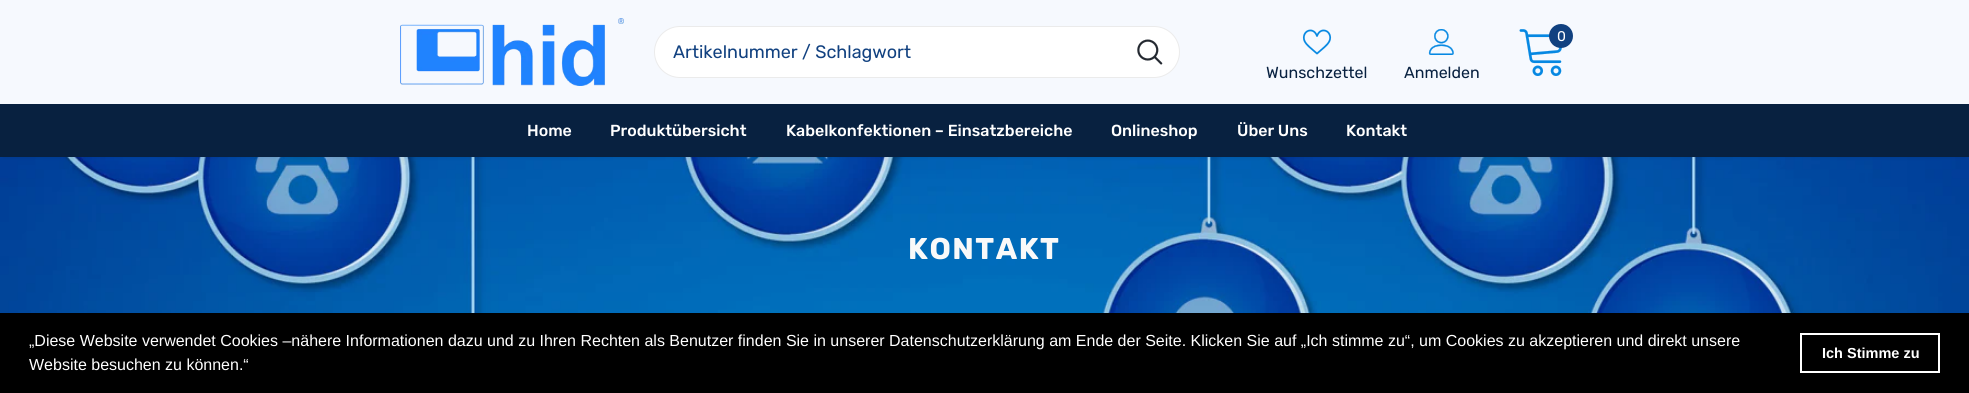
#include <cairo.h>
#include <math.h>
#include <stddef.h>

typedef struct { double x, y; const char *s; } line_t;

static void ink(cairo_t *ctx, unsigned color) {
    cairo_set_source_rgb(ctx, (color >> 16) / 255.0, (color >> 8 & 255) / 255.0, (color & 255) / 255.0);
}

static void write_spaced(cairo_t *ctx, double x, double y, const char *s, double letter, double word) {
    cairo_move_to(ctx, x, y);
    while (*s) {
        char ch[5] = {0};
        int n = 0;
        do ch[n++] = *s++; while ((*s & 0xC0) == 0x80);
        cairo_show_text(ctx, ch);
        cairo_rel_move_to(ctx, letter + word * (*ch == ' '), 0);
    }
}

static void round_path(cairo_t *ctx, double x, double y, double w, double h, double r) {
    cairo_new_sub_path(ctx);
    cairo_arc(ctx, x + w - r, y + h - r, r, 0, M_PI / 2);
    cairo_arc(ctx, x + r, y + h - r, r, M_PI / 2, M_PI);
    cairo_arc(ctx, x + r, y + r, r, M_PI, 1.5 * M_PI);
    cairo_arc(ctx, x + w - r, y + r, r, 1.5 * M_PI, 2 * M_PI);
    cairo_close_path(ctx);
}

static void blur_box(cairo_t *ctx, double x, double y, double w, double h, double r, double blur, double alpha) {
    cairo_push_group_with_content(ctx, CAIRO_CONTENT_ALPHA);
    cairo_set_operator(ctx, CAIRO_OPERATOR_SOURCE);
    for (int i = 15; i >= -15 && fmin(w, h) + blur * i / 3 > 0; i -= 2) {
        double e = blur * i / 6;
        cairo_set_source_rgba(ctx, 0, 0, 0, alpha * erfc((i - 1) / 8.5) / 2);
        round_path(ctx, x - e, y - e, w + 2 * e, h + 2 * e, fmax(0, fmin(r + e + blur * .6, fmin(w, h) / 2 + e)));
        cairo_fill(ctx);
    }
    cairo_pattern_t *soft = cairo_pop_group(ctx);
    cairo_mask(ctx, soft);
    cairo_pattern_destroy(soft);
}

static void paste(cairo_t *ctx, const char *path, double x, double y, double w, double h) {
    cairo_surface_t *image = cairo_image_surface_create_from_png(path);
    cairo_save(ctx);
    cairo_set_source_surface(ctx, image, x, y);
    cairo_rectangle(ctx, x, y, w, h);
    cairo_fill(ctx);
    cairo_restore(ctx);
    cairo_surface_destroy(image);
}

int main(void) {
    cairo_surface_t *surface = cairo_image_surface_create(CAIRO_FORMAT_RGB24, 1969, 393);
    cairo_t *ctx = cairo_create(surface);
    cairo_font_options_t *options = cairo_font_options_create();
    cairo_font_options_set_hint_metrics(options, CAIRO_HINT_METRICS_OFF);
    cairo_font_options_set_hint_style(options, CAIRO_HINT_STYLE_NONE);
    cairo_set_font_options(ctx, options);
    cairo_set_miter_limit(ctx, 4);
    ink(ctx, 0xF6F9FE);
    cairo_paint(ctx);
    paste(ctx, "media/1.png", 400, 18, 224, 68);
    ink(ctx, 0xFFFFFF);
    round_path(ctx, 654.5, 26.5, 525, 51, 25.5);
    cairo_fill_preserve(ctx);
    ink(ctx, 0xEBEBEB);
    cairo_set_line_width(ctx, 1);
    cairo_stroke(ctx);
    cairo_select_font_face(ctx, "Rubik", CAIRO_FONT_SLANT_NORMAL, CAIRO_FONT_WEIGHT_NORMAL);
    cairo_set_font_size(ctx, 18);
    ink(ctx, 0x114180);
    cairo_move_to(ctx, 673, 58);
    cairo_show_text(ctx, "Artikelnummer / Schlagwort");
    paste(ctx, "media/2.png", 1137, 39, 26, 26);
    paste(ctx, "media/3.png", 1519, 29, 43, 47);
    cairo_arc(ctx, 1561, 36, 12, 0, 2 * M_PI);
    cairo_fill(ctx);
    cairo_set_font_size(ctx, 14);
    ink(ctx, 0xFFFFFF);
    cairo_move_to(ctx, 1557, 41);
    cairo_show_text(ctx, "0");
    paste(ctx, "media/4.png", 1302, 29, 30, 26);
    cairo_set_font_size(ctx, 16);
    ink(ctx, 0x082140);
    cairo_move_to(ctx, 1266, 78);
    cairo_show_text(ctx, "Wunschzettel");
    paste(ctx, "media/5.png", 1428, 29, 26, 26);
    cairo_move_to(ctx, 1404, 78);
    cairo_show_text(ctx, "Anmelden");
    paste(ctx, "media/6.png", 0, 157, 1969, 156);
    ink(ctx, 0x000000);
    blur_box(ctx, 3, 110, 1963, 47, 0, 1.5, 0.1);
    ink(ctx, 0x082140);
    cairo_rectangle(ctx, 0, 104, 1969, 53);
    cairo_fill(ctx);
    cairo_select_font_face(ctx, "Rubik Medium", CAIRO_FONT_SLANT_NORMAL, CAIRO_FONT_WEIGHT_NORMAL);
    ink(ctx, 0xFFFFFF);
    {
        static const line_t items[] = {
            {527, 136, "Home"},
            {610, 136, "Produktübersicht"},
            {786, 136, "Kabelkonfektionen – Einsatzbereiche"},
            {1111, 136, "Onlineshop"},
            {1237, 136, "Über Uns"},
            {1346, 136, "Kontakt"},
        };
        for (size_t i = 0; i < sizeof items / sizeof *items; i++) {
            cairo_move_to(ctx, items[i].x, items[i].y);
            cairo_show_text(ctx, items[i].s);
        }
    }
    cairo_select_font_face(ctx, "Rubik", CAIRO_FONT_SLANT_NORMAL, CAIRO_FONT_WEIGHT_BOLD);
    cairo_set_font_size(ctx, 30);
    ink(ctx, 0xF9F9F9);
    write_spaced(ctx, 908, 259, "KONTAKT", 1.5, 0);
    ink(ctx, 0x000000);
    cairo_rectangle(ctx, 0, 313, 1969, 80);
    cairo_fill(ctx);
    cairo_select_font_face(ctx, "Liberation Sans", CAIRO_FONT_SLANT_NORMAL, CAIRO_FONT_WEIGHT_NORMAL);
    cairo_set_font_size(ctx, 16);
    ink(ctx, 0xFFFFFF);
    cairo_move_to(ctx, 29, 346);
    cairo_show_text(ctx, "„Diese Website verwendet Cookies –nähere Informationen dazu und zu Ihren Rechten als Benutzer finden Sie in unserer Datenschutzerklärung am Ende der Seite. Klicken Sie auf „Ich stimme zu“, um Cookies zu akzeptieren und direkt unsere");
    cairo_move_to(ctx, 29, 370);
    cairo_show_text(ctx, "Website besuchen zu können.“");
    cairo_rectangle(ctx, 1801, 334, 138, 38);
    cairo_set_line_width(ctx, 2);
    cairo_stroke(ctx);
    cairo_select_font_face(ctx, "Liberation Sans", CAIRO_FONT_SLANT_NORMAL, CAIRO_FONT_WEIGHT_BOLD);
    cairo_set_font_size(ctx, 14.5);
    cairo_move_to(ctx, 1822, 358);
    cairo_show_text(ctx, "Ich Stimme zu");
    cairo_surface_write_to_png(surface, "image.png");
    cairo_font_options_destroy(options);
    cairo_destroy(ctx);
    cairo_surface_destroy(surface);
    return 0;
}
